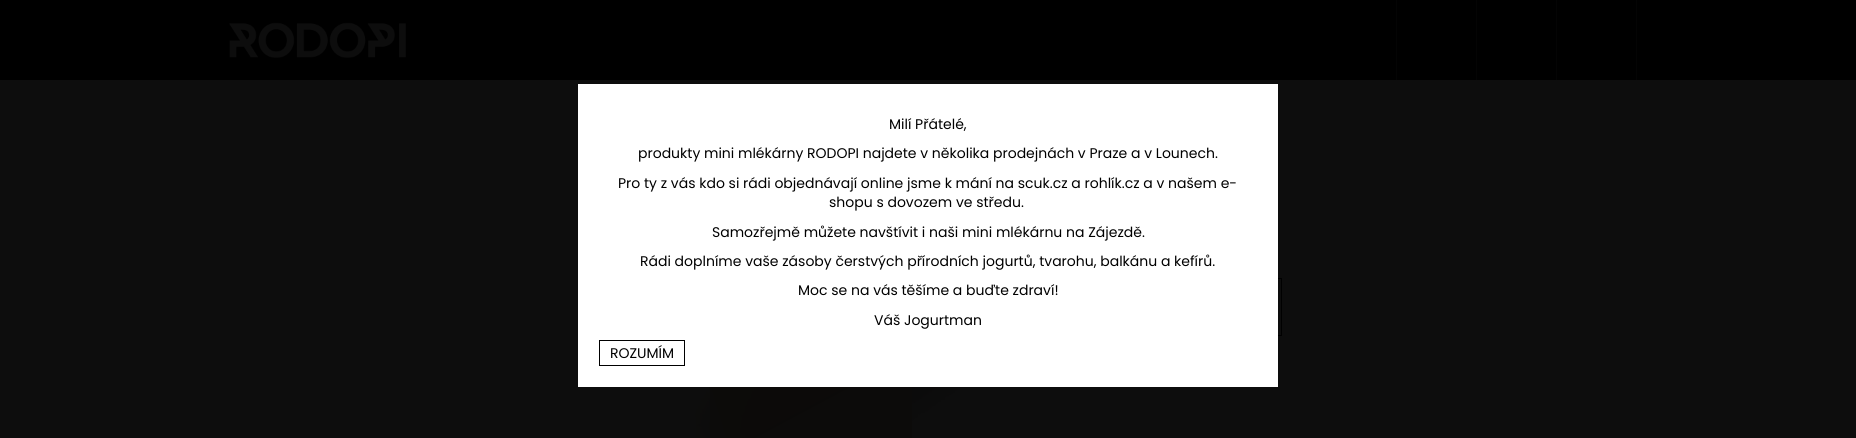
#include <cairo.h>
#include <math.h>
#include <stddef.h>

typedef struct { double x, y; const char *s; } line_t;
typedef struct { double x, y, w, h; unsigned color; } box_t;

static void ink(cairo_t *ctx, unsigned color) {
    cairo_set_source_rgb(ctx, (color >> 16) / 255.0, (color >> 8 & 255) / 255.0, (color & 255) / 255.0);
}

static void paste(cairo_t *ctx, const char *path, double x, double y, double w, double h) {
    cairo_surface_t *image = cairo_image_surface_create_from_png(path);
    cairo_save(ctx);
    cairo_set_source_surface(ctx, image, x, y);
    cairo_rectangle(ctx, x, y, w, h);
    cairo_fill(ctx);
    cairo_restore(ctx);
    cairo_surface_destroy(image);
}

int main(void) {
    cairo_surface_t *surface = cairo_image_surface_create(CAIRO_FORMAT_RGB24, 1856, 438);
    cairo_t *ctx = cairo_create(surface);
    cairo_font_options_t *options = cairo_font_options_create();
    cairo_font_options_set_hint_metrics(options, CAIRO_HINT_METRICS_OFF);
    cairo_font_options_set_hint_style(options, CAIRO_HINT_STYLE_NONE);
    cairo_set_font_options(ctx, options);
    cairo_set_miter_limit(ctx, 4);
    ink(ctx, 0x0D0D0D);
    cairo_paint(ctx);
    ink(ctx, 0x000000);
    cairo_rectangle(ctx, 0, 0, 1856, 80);
    cairo_fill(ctx);
    paste(ctx, "media/1.png", 229, 22, 177, 36);
    {
        static const box_t items[] = {
            {1636, 0, 1, 80, 0x040404},
            {1396, 0, 1, 80, 0x040404},
            {1476, 0, 1, 80, 0x040404},
            {1556, 0, 1, 80, 0x040404},
        };
        for (size_t i = 0; i < sizeof items / sizeof *items; i++) {
            ink(ctx, items[i].color);
            cairo_rectangle(ctx, items[i].x, items[i].y, items[i].w, items[i].h);
            cairo_fill(ctx);
        }
    }
    cairo_rectangle(ctx, 1108.5, 278.5, 173, 57);
    ink(ctx, 0x000000);
    cairo_set_line_width(ctx, 1);
    cairo_stroke(ctx);
    paste(ctx, "media/2.png", 694, 387, 324, 51);
    ink(ctx, 0xFFFFFF);
    cairo_rectangle(ctx, 578, 84, 700, 303);
    cairo_fill(ctx);
    cairo_select_font_face(ctx, "Poppins", CAIRO_FONT_SLANT_NORMAL, CAIRO_FONT_WEIGHT_NORMAL);
    cairo_set_font_size(ctx, 14);
    ink(ctx, 0x000000);
    {
        static const line_t items[] = {
            {889, 129, "Milí Přátelé,"},
            {638, 158, "produkty mini mlékárny RODOPI najdete v několika prodejnách v Praze a v Lounech."},
            {618, 188, "Pro ty z vás kdo si rádi objednávají online jsme k mání na scuk.cz a rohlík.cz a v našem e-"},
            {829, 207, "shopu s dovozem ve středu."},
            {712, 237, "Samozřejmě můžete navštívit i naši mini mlékárnu na Zájezdě."},
            {640, 266, "Rádi doplníme vaše zásoby čerstvých přírodních jogurtů, tvarohu, balkánu a kefírů."},
            {798, 295, "Moc se na vás těšíme a buďte zdraví!"},
            {874, 325, "Váš Jogurtman"},
        };
        for (size_t i = 0; i < sizeof items / sizeof *items; i++) {
            cairo_move_to(ctx, items[i].x, items[i].y);
            cairo_show_text(ctx, items[i].s);
        }
    }
    cairo_rectangle(ctx, 599.5, 340.5, 85, 25);
    cairo_stroke(ctx);
    cairo_move_to(ctx, 610, 358);
    cairo_show_text(ctx, "ROZUMÍM");
    cairo_set_source_rgba(ctx, 0.051, 0.047, 0.043, 0.9);
    cairo_rectangle(ctx, 710, 387, 202, 51);
    cairo_fill(ctx);
    cairo_surface_write_to_png(surface, "image.png");
    cairo_font_options_destroy(options);
    cairo_destroy(ctx);
    cairo_surface_destroy(surface);
    return 0;
}
